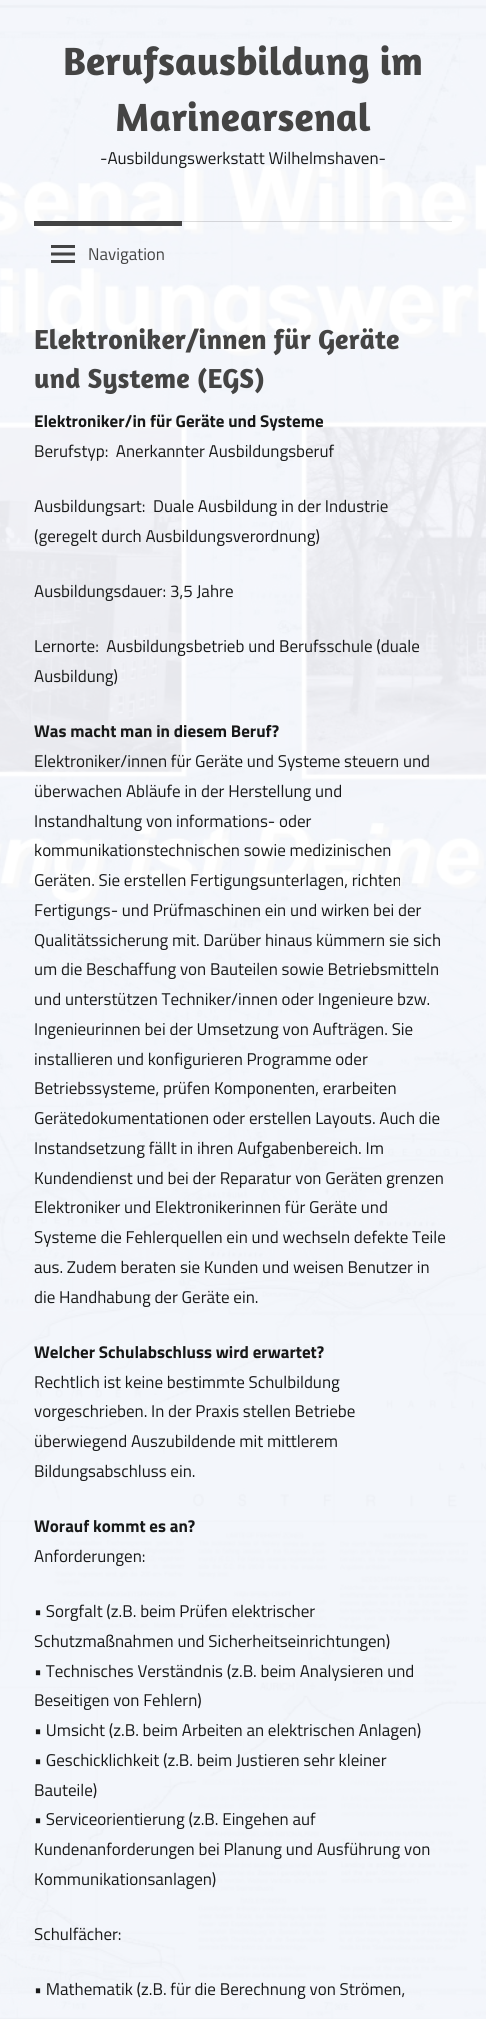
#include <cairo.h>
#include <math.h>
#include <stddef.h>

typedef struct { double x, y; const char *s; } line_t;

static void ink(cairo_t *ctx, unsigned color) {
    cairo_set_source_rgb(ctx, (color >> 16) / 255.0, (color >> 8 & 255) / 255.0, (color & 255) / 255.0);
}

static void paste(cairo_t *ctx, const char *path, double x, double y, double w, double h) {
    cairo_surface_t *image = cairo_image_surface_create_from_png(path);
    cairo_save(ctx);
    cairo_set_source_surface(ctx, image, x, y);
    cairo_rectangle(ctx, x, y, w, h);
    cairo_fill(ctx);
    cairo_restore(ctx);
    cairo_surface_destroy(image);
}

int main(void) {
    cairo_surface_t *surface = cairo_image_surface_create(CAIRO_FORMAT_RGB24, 486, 2019);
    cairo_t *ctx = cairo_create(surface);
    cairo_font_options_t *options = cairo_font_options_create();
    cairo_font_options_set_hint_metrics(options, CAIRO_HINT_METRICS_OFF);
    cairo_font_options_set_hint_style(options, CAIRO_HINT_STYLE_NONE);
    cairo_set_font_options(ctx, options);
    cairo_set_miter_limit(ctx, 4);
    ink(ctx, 0xFFFFFF);
    cairo_paint(ctx);
    paste(ctx, "media/1.png", 0, 0, 486, 2019);
    cairo_select_font_face(ctx, "Amaranth", CAIRO_FONT_SLANT_NORMAL, CAIRO_FONT_WEIGHT_BOLD);
    cairo_set_font_size(ctx, 40);
    ink(ctx, 0x444444);
    cairo_move_to(ctx, 63, 75);
    cairo_show_text(ctx, "Berufsausbildung im");
    cairo_move_to(ctx, 115, 131);
    cairo_show_text(ctx, "Marinearsenal");
    cairo_select_font_face(ctx, "Titillium Web", CAIRO_FONT_SLANT_NORMAL, CAIRO_FONT_WEIGHT_NORMAL);
    cairo_set_font_size(ctx, 17);
    ink(ctx, 0x181919);
    cairo_move_to(ctx, 100, 164);
    cairo_show_text(ctx, "-Ausbildungswerkstatt Wilhelmshaven-");
    cairo_set_source_rgba(ctx, 0, 0, 0, 0.14);
    cairo_rectangle(ctx, 34, 221, 418, 1);
    cairo_fill(ctx);
    cairo_set_source_rgba(ctx, 0.188, 0.188, 0.188, 0.9);
    cairo_rectangle(ctx, 34, 221, 148, 5);
    cairo_fill(ctx);
    paste(ctx, "media/2.png", 51, 245, 24, 18);
    ink(ctx, 0x444444);
    cairo_move_to(ctx, 88, 260);
    cairo_show_text(ctx, "Navigation");
    cairo_select_font_face(ctx, "Amaranth", CAIRO_FONT_SLANT_NORMAL, CAIRO_FONT_WEIGHT_BOLD);
    cairo_set_font_size(ctx, 28);
    cairo_move_to(ctx, 34, 349);
    cairo_show_text(ctx, "Elektroniker/innen für Geräte");
    cairo_move_to(ctx, 34, 388);
    cairo_show_text(ctx, "und Systeme (EGS)");
    cairo_select_font_face(ctx, "Titillium Web", CAIRO_FONT_SLANT_NORMAL, CAIRO_FONT_WEIGHT_BOLD);
    cairo_set_font_size(ctx, 17);
    ink(ctx, 0x181919);
    cairo_move_to(ctx, 34, 427);
    cairo_show_text(ctx, "Elektroniker/in für Geräte und Systeme");
    cairo_select_font_face(ctx, "Titillium Web", CAIRO_FONT_SLANT_NORMAL, CAIRO_FONT_WEIGHT_NORMAL);
    {
        static const line_t items[] = {
            {34, 457, "Berufstyp:  Anerkannter Ausbildungsberuf"},
            {34, 512, "Ausbildungsart:  Duale Ausbildung in der Industrie"},
            {34, 542, "(geregelt durch Ausbildungsverordnung)"},
            {34, 597, "Ausbildungsdauer: 3,5 Jahre"},
            {34, 652, "Lernorte:  Ausbildungsbetrieb und Berufsschule (duale"},
            {34, 682, "Ausbildung)"},
        };
        for (size_t i = 0; i < sizeof items / sizeof *items; i++) {
            cairo_move_to(ctx, items[i].x, items[i].y);
            cairo_show_text(ctx, items[i].s);
        }
    }
    cairo_select_font_face(ctx, "Titillium Web", CAIRO_FONT_SLANT_NORMAL, CAIRO_FONT_WEIGHT_BOLD);
    cairo_move_to(ctx, 34, 737);
    cairo_show_text(ctx, "Was macht man in diesem Beruf?");
    cairo_select_font_face(ctx, "Titillium Web", CAIRO_FONT_SLANT_NORMAL, CAIRO_FONT_WEIGHT_NORMAL);
    {
        static const line_t items[] = {
            {34, 767, "Elektroniker/innen für Geräte und Systeme steuern und"},
            {34, 797, "überwachen Abläufe in der Herstellung und"},
            {34, 827, "Instandhaltung von informations- oder"},
            {34, 856, "kommunikationstechnischen sowie medizinischen"},
            {34, 886, "Geräten. Sie erstellen Fertigungsunterlagen, richten"},
            {34, 916, "Fertigungs- und Prüfmaschinen ein und wirken bei der"},
            {34, 946, "Qualitätssicherung mit. Darüber hinaus kümmern sie sich"},
            {34, 975, "um die Beschaffung von Bauteilen sowie Betriebsmitteln"},
            {34, 1005, "und unterstützen Techniker/innen oder Ingenieure bzw."},
            {34, 1035, "Ingenieurinnen bei der Umsetzung von Aufträgen. Sie"},
            {34, 1065, "installieren und konfigurieren Programme oder"},
            {34, 1094, "Betriebssysteme, prüfen Komponenten, erarbeiten"},
            {34, 1124, "Gerätedokumentationen oder erstellen Layouts. Auch die"},
            {34, 1154, "Instandsetzung fällt in ihren Aufgabenbereich. Im"},
            {34, 1184, "Kundendienst und bei der Reparatur von Geräten grenzen"},
            {34, 1213, "Elektroniker und Elektronikerinnen für Geräte und"},
            {34, 1243, "Systeme die Fehlerquellen ein und wechseln defekte Teile"},
            {34, 1273, "aus. Zudem beraten sie Kunden und weisen Benutzer in"},
            {34, 1303, "die Handhabung der Geräte ein."},
        };
        for (size_t i = 0; i < sizeof items / sizeof *items; i++) {
            cairo_move_to(ctx, items[i].x, items[i].y);
            cairo_show_text(ctx, items[i].s);
        }
    }
    cairo_select_font_face(ctx, "Titillium Web", CAIRO_FONT_SLANT_NORMAL, CAIRO_FONT_WEIGHT_BOLD);
    cairo_move_to(ctx, 34, 1358);
    cairo_show_text(ctx, "Welcher Schulabschluss wird erwartet?");
    cairo_select_font_face(ctx, "Titillium Web", CAIRO_FONT_SLANT_NORMAL, CAIRO_FONT_WEIGHT_NORMAL);
    {
        static const line_t items[] = {
            {34, 1388, "Rechtlich ist keine bestimmte Schulbildung"},
            {34, 1417, "vorgeschrieben. In der Praxis stellen Betriebe"},
            {34, 1447, "überwiegend Auszubildende mit mittlerem"},
            {34, 1477, "Bildungsabschluss ein."},
        };
        for (size_t i = 0; i < sizeof items / sizeof *items; i++) {
            cairo_move_to(ctx, items[i].x, items[i].y);
            cairo_show_text(ctx, items[i].s);
        }
    }
    cairo_select_font_face(ctx, "Titillium Web", CAIRO_FONT_SLANT_NORMAL, CAIRO_FONT_WEIGHT_BOLD);
    cairo_move_to(ctx, 34, 1532);
    cairo_show_text(ctx, "Worauf kommt es an?");
    cairo_select_font_face(ctx, "Titillium Web", CAIRO_FONT_SLANT_NORMAL, CAIRO_FONT_WEIGHT_NORMAL);
    {
        static const line_t items[] = {
            {34, 1562, "Anforderungen:"},
            {34, 1617, "• Sorgfalt (z.B. beim Prüfen elektrischer"},
            {34, 1647, "Schutzmaßnahmen und Sicherheitseinrichtungen)"},
            {34, 1677, "• Technisches Verständnis (z.B. beim Analysieren und"},
            {34, 1706, "Beseitigen von Fehlern)"},
            {34, 1736, "• Umsicht (z.B. beim Arbeiten an elektrischen Anlagen)"},
            {34, 1766, "• Geschicklichkeit (z.B. beim Justieren sehr kleiner"},
            {34, 1796, "Bauteile)"},
            {34, 1825, "• Serviceorientierung (z.B. Eingehen auf"},
            {34, 1855, "Kundenanforderungen bei Planung und Ausführung von"},
            {34, 1885, "Kommunikationsanlagen)"},
            {34, 1940, "Schulfächer:"},
            {34, 1995, "• Mathematik (z.B. für die Berechnung von Strömen,"},
        };
        for (size_t i = 0; i < sizeof items / sizeof *items; i++) {
            cairo_move_to(ctx, items[i].x, items[i].y);
            cairo_show_text(ctx, items[i].s);
        }
    }
    cairo_surface_write_to_png(surface, "image.png");
    cairo_font_options_destroy(options);
    cairo_destroy(ctx);
    cairo_surface_destroy(surface);
    return 0;
}
